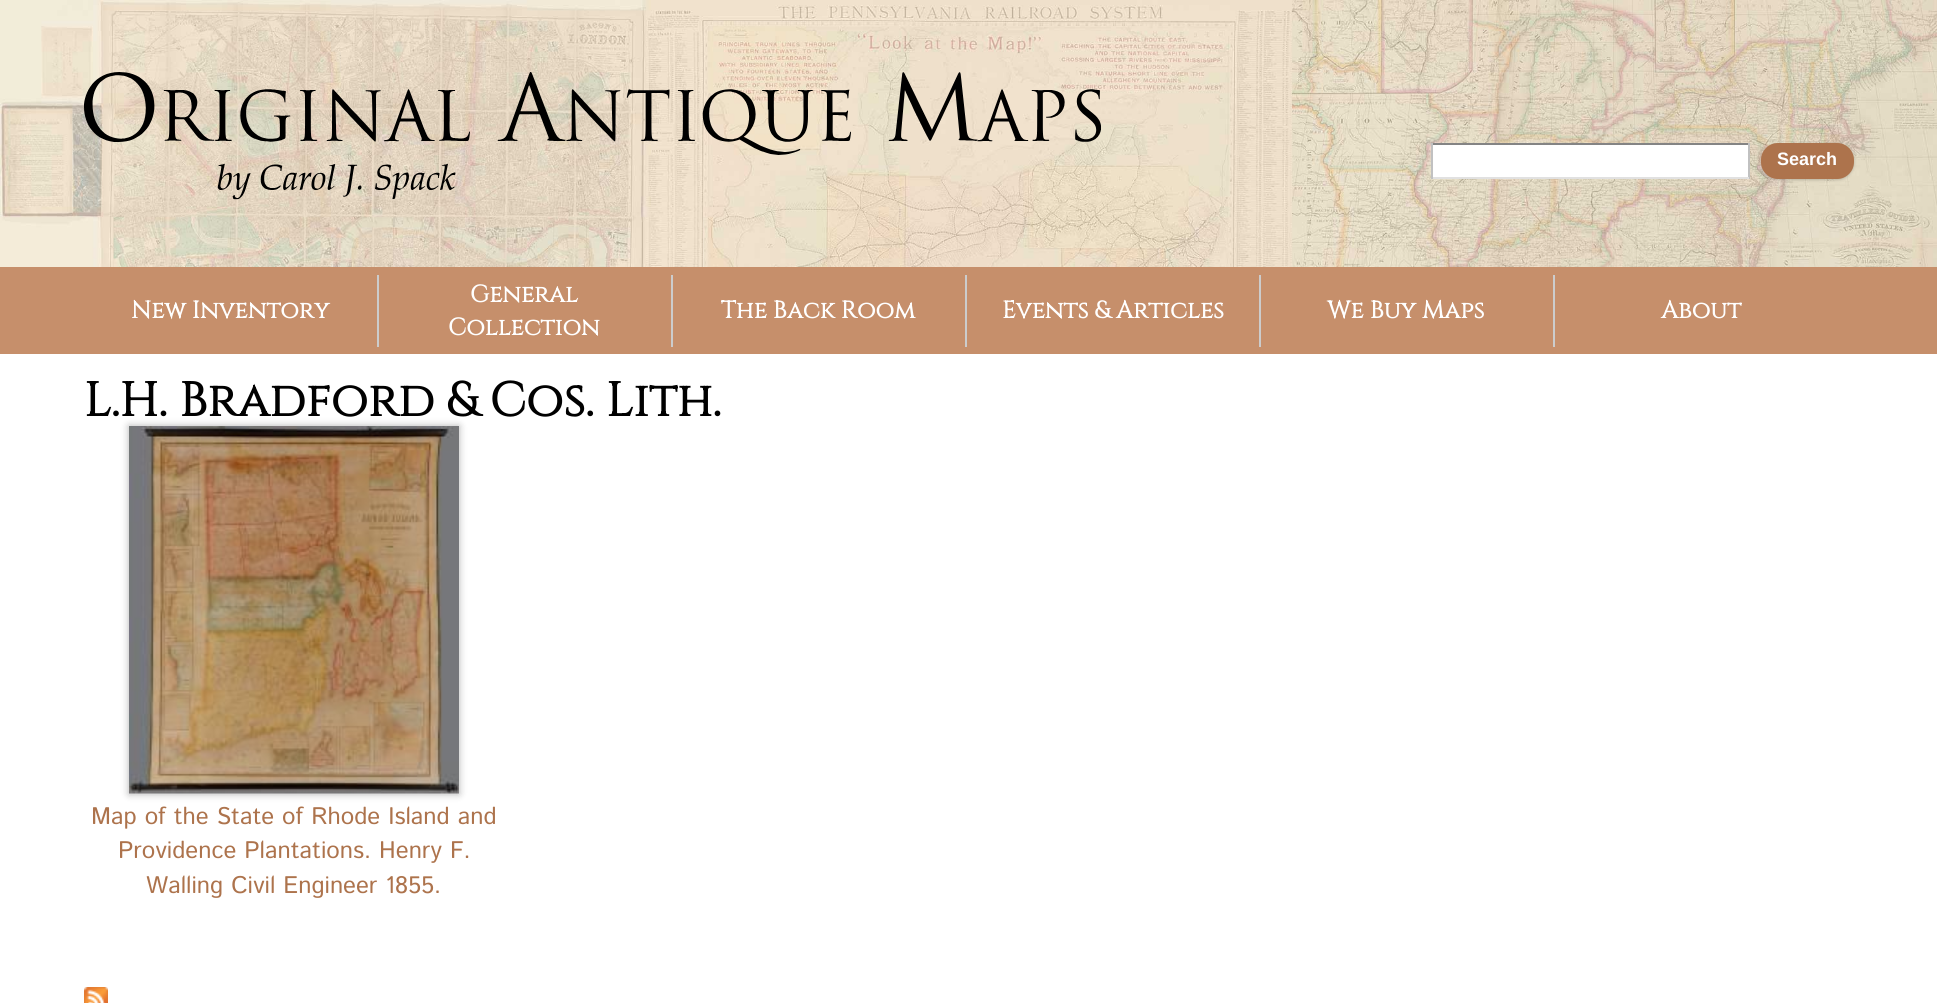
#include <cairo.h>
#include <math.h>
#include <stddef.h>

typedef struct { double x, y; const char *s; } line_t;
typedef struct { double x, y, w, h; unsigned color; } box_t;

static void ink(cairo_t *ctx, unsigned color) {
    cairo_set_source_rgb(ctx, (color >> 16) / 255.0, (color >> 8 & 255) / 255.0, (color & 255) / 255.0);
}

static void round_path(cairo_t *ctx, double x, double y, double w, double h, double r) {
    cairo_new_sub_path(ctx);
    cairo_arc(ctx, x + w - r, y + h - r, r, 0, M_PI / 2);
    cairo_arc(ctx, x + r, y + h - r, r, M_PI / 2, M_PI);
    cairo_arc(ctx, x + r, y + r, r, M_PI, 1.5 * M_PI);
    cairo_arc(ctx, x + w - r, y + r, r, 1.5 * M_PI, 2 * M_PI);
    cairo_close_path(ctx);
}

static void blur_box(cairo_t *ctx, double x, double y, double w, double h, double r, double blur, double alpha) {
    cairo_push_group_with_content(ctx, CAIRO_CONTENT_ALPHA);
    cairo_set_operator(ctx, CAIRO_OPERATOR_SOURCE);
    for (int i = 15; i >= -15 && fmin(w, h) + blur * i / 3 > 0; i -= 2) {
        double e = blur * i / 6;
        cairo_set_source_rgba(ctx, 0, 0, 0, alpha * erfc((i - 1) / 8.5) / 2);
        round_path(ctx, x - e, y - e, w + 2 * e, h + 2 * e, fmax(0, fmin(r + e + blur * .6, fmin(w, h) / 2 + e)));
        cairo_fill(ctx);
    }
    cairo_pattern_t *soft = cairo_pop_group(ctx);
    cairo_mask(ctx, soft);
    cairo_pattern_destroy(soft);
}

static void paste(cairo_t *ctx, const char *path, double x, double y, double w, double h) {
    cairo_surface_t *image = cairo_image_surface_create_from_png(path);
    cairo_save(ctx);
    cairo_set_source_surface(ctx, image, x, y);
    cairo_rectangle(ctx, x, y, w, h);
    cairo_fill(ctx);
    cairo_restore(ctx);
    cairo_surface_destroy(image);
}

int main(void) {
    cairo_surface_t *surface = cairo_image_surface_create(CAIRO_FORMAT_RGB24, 1937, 1003);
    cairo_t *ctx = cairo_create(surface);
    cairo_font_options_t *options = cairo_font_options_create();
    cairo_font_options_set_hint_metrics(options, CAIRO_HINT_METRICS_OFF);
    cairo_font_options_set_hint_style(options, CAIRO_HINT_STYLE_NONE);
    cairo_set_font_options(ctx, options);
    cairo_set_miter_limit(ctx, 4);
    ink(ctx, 0xFFFFFF);
    cairo_paint(ctx);
    paste(ctx, "media/1.png", 0, 0, 1937, 267);
    paste(ctx, "media/2.png", 84, 72, 1017, 128);
    {
        static const box_t items[] = {
            {1433, 145, 315, 32, 0xFFFFFF},
            {1431, 143, 318, 2, 0x848484},
            {1748, 143, 2, 36, 0xC1C1C1},
            {1431, 177, 318, 2, 0xE1E1E1},
            {1431, 143, 2, 36, 0xC1C1C1},
        };
        for (size_t i = 0; i < sizeof items / sizeof *items; i++) {
            ink(ctx, items[i].color);
            cairo_rectangle(ctx, items[i].x, items[i].y, items[i].w, items[i].h);
            cairo_fill(ctx);
        }
    }
    ink(ctx, 0x000000);
    blur_box(ctx, 1761, 144, 93, 36, 17, 1.5, 0.2);
    ink(ctx, 0xAD734C);
    round_path(ctx, 1762, 144, 91, 34, 16);
    cairo_fill_preserve(ctx);
    cairo_stroke(ctx);
    cairo_select_font_face(ctx, "Liberation Sans", CAIRO_FONT_SLANT_NORMAL, CAIRO_FONT_WEIGHT_BOLD);
    cairo_set_font_size(ctx, 18);
    ink(ctx, 0xFFFFFF);
    cairo_move_to(ctx, 1777, 165);
    cairo_show_text(ctx, "Search");
    ink(ctx, 0xC68F6B);
    cairo_rectangle(ctx, 0, 267, 1937, 87);
    cairo_fill(ctx);
    ink(ctx, 0xCCCCCC);
    cairo_rectangle(ctx, 377, 275, 2, 72);
    cairo_fill(ctx);
    cairo_select_font_face(ctx, "Cinzel", CAIRO_FONT_SLANT_NORMAL, CAIRO_FONT_WEIGHT_BOLD);
    cairo_set_font_size(ctx, 24);
    ink(ctx, 0xFFFFFF);
    cairo_move_to(ctx, 131, 318);
    cairo_show_text(ctx, "New Inventory");
    ink(ctx, 0xCCCCCC);
    cairo_rectangle(ctx, 671, 275, 2, 72);
    cairo_fill(ctx);
    ink(ctx, 0xFFFFFF);
    cairo_move_to(ctx, 470, 302);
    cairo_show_text(ctx, "General");
    cairo_move_to(ctx, 448, 335);
    cairo_show_text(ctx, "Collection");
    ink(ctx, 0xCCCCCC);
    cairo_rectangle(ctx, 965, 275, 2, 72);
    cairo_fill(ctx);
    ink(ctx, 0xFFFFFF);
    cairo_move_to(ctx, 721, 318);
    cairo_show_text(ctx, "The Back Room");
    ink(ctx, 0xCCCCCC);
    cairo_rectangle(ctx, 1259, 275, 2, 72);
    cairo_fill(ctx);
    ink(ctx, 0xFFFFFF);
    cairo_move_to(ctx, 1002, 318);
    cairo_show_text(ctx, "Events & Articles");
    ink(ctx, 0xCCCCCC);
    cairo_rectangle(ctx, 1553, 275, 2, 72);
    cairo_fill(ctx);
    ink(ctx, 0xFFFFFF);
    cairo_move_to(ctx, 1327, 318);
    cairo_show_text(ctx, "We Buy Maps");
    cairo_move_to(ctx, 1661, 318);
    cairo_show_text(ctx, "About");
    cairo_set_font_size(ctx, 48);
    ink(ctx, 0x000000);
    cairo_move_to(ctx, 84, 416);
    cairo_show_text(ctx, "L.H. Bradford & Cos. Lith.");
    ink(ctx, 0x000000);
    blur_box(ctx, 129, 426, 330, 368, 0, 4, 0.3);
    paste(ctx, "media/3.png", 129, 426, 330, 368);
    cairo_select_font_face(ctx, "Istok Web", CAIRO_FONT_SLANT_NORMAL, CAIRO_FONT_WEIGHT_NORMAL);
    cairo_set_font_size(ctx, 24);
    ink(ctx, 0xAD734C);
    {
        static const line_t items[] = {
            {91, 824, "Map of the State of Rhode Island and"},
            {118, 858, "Providence Plantations. Henry F."},
            {146, 893, "Walling Civil Engineer 1855."},
        };
        for (size_t i = 0; i < sizeof items / sizeof *items; i++) {
            cairo_move_to(ctx, items[i].x, items[i].y);
            cairo_show_text(ctx, items[i].s);
        }
    }
    paste(ctx, "media/4.png", 84, 987, 24, 16);
    cairo_surface_write_to_png(surface, "image.png");
    cairo_font_options_destroy(options);
    cairo_destroy(ctx);
    cairo_surface_destroy(surface);
    return 0;
}
